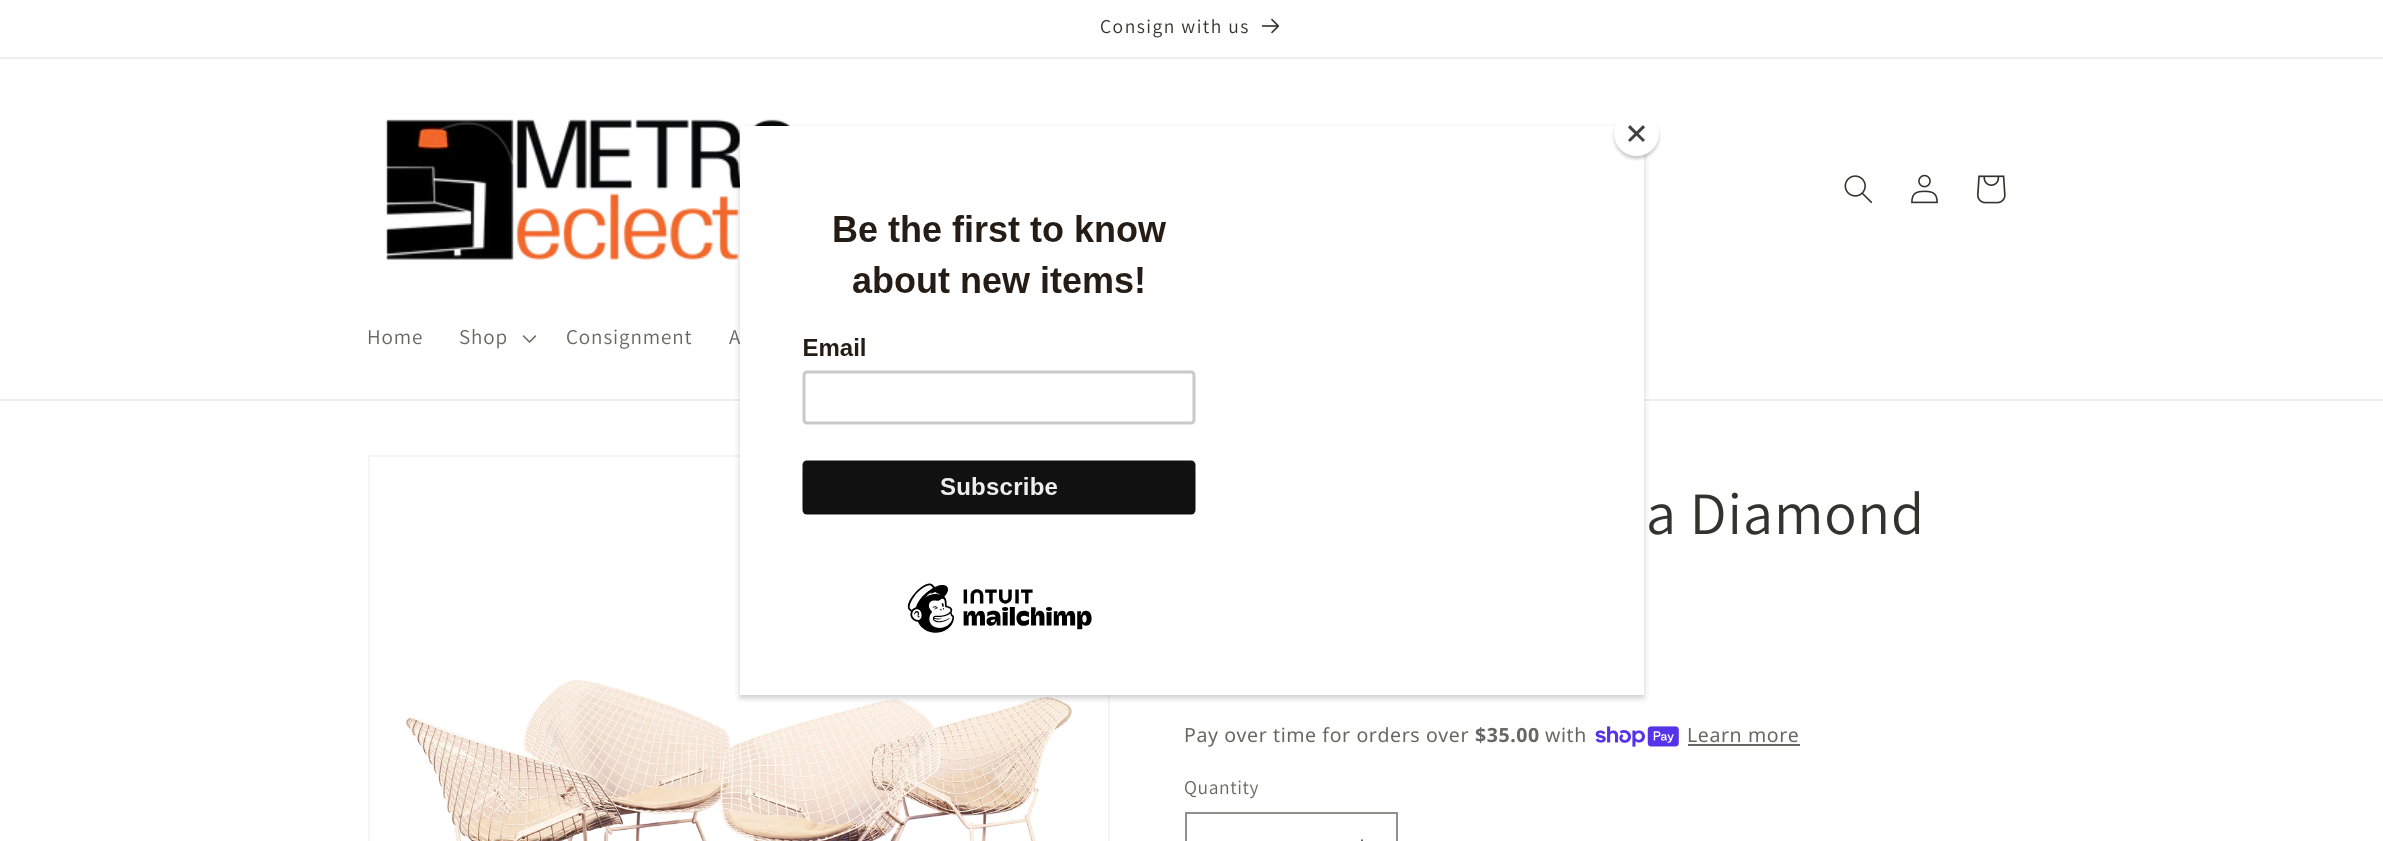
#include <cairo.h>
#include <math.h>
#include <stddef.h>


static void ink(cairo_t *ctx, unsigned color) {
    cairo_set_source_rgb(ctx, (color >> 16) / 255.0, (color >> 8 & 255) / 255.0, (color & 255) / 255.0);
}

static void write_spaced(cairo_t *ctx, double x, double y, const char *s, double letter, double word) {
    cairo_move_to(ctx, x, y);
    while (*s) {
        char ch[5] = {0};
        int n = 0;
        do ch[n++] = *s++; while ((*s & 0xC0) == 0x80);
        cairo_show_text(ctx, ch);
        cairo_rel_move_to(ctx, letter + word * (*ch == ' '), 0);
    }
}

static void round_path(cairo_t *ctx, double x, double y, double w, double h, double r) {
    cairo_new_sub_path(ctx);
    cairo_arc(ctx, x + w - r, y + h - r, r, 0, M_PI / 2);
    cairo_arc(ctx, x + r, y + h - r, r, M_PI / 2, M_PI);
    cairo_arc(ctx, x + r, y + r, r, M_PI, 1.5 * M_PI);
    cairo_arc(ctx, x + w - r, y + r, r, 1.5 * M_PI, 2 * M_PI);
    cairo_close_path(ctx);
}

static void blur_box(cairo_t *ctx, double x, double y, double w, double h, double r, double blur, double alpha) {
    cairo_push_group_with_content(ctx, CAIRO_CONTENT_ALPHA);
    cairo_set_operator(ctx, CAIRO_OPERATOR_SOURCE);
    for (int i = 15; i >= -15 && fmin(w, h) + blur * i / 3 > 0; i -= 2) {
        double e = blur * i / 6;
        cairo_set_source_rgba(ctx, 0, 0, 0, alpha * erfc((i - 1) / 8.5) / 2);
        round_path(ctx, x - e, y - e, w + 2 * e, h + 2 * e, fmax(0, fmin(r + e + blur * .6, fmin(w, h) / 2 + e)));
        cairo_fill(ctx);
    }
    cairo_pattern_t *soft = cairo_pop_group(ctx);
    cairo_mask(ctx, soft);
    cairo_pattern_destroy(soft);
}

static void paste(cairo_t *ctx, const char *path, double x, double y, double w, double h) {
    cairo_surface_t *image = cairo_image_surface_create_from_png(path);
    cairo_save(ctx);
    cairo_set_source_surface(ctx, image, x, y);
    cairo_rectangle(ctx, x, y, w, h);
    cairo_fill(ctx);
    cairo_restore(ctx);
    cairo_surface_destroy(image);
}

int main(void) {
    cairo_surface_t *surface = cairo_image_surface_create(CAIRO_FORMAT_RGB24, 2383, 841);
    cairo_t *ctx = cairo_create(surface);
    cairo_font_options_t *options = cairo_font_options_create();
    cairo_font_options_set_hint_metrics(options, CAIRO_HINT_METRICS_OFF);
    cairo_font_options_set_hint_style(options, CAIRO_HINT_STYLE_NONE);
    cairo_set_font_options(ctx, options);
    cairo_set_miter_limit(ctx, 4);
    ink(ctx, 0xFFFFFF);
    cairo_paint(ctx);
    ink(ctx, 0xEFEFEE);
    cairo_rectangle(ctx, 0, 57, 2383, 2);
    cairo_fill(ctx);
    cairo_select_font_face(ctx, "Assistant", CAIRO_FONT_SLANT_NORMAL, CAIRO_FONT_WEIGHT_NORMAL);
    cairo_set_font_size(ctx, 19.5);
    ink(ctx, 0x33332D);
    write_spaced(ctx, 1100, 33, "Consign with us", 1.5, 0);
    paste(ctx, "media/1.png", 1262, 18, 18, 16);
    ink(ctx, 0xEFEFEE);
    cairo_rectangle(ctx, 0, 399, 2383, 2);
    cairo_fill(ctx);
    paste(ctx, "media/2.png", 385, 119, 406, 141);
    paste(ctx, "media/3.png", 1844, 175, 28, 28);
    paste(ctx, "media/4.png", 1911, 174, 27, 30);
    paste(ctx, "media/5.png", 1977, 175, 29, 29);
    cairo_set_font_size(ctx, 21);
    ink(ctx, 0x666662);
    write_spaced(ctx, 367, 344, "Home", 0.9, 0);
    write_spaced(ctx, 459, 344, "Shop", 0.9, 0);
    paste(ctx, "media/6.png", 522, 335, 15, 8);
    write_spaced(ctx, 566, 344, "Consignment", 0.9, 0);
    write_spaced(ctx, 729, 344, "A", 0.9, 0);
    cairo_rectangle(ctx, 369, 456, 740, 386);
    ink(ctx, 0xF5F5F5);
    cairo_stroke(ctx);
    paste(ctx, "media/8.png", 406, 680, 666, 161);
    ink(ctx, 0x000000);
    blur_box(ctx, 740, 129, 904, 569, 0, 3, 0.2);
    paste(ctx, "media/7.png", 740, 126, 904, 569);
    blur_box(ctx, 1614, 114, 45, 45, 22.5, 1.5, 0.2);
    ink(ctx, 0xFFFFFF);
    cairo_arc(ctx, 1636.5, 133.5, 22.5, 0, 2 * M_PI);
    cairo_fill(ctx);
    ink(ctx, 0x414141);
    cairo_new_path(ctx);
    cairo_move_to(ctx, 1643, 125);
    cairo_line_to(ctx, 1645, 127.5);
    cairo_line_to(ctx, 1630, 142);
    cairo_line_to(ctx, 1628, 140);
    cairo_close_path(ctx);
    cairo_fill(ctx);
    cairo_new_path(ctx);
    cairo_move_to(ctx, 1628, 127.5);
    cairo_line_to(ctx, 1630, 125);
    cairo_line_to(ctx, 1645, 140);
    cairo_line_to(ctx, 1643, 142);
    cairo_close_path(ctx);
    cairo_fill(ctx);
    cairo_set_font_size(ctx, 60);
    ink(ctx, 0x33332D);
    write_spaced(ctx, 1646, 534, "a Diamond", 0.9, 0);
    cairo_select_font_face(ctx, "Noto Sans", CAIRO_FONT_SLANT_NORMAL, CAIRO_FONT_WEIGHT_NORMAL);
    cairo_set_font_size(ctx, 19.5);
    ink(ctx, 0x666662);
    write_spaced(ctx, 1184, 742, "Pay over time for orders over", 0.6, 0);
    cairo_select_font_face(ctx, "Noto Sans", CAIRO_FONT_SLANT_NORMAL, CAIRO_FONT_WEIGHT_BOLD);
    write_spaced(ctx, 1475, 742, "$35.00", 0.6, 0);
    cairo_select_font_face(ctx, "Noto Sans", CAIRO_FONT_SLANT_NORMAL, CAIRO_FONT_WEIGHT_NORMAL);
    write_spaced(ctx, 1545, 742, "with", 0.6, 0);
    paste(ctx, "media/9.png", 1595, 726, 84, 21);
    write_spaced(ctx, 1687, 742, "Learn more", 0.6, 0);
    cairo_rectangle(ctx, 1688, 744, 112, 2);
    cairo_fill(ctx);
    cairo_select_font_face(ctx, "Assistant", CAIRO_FONT_SLANT_NORMAL, CAIRO_FONT_WEIGHT_NORMAL);
    write_spaced(ctx, 1184, 794, "Quantity", 0.6, 0);
    paste(ctx, "media/10.png", 1361, 839, 2, 2);
    cairo_rectangle(ctx, 1186, 813, 211, 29);
    ink(ctx, 0x8F8F8C);
    cairo_stroke(ctx);
    cairo_surface_write_to_png(surface, "image.png");
    cairo_font_options_destroy(options);
    cairo_destroy(ctx);
    cairo_surface_destroy(surface);
    return 0;
}
